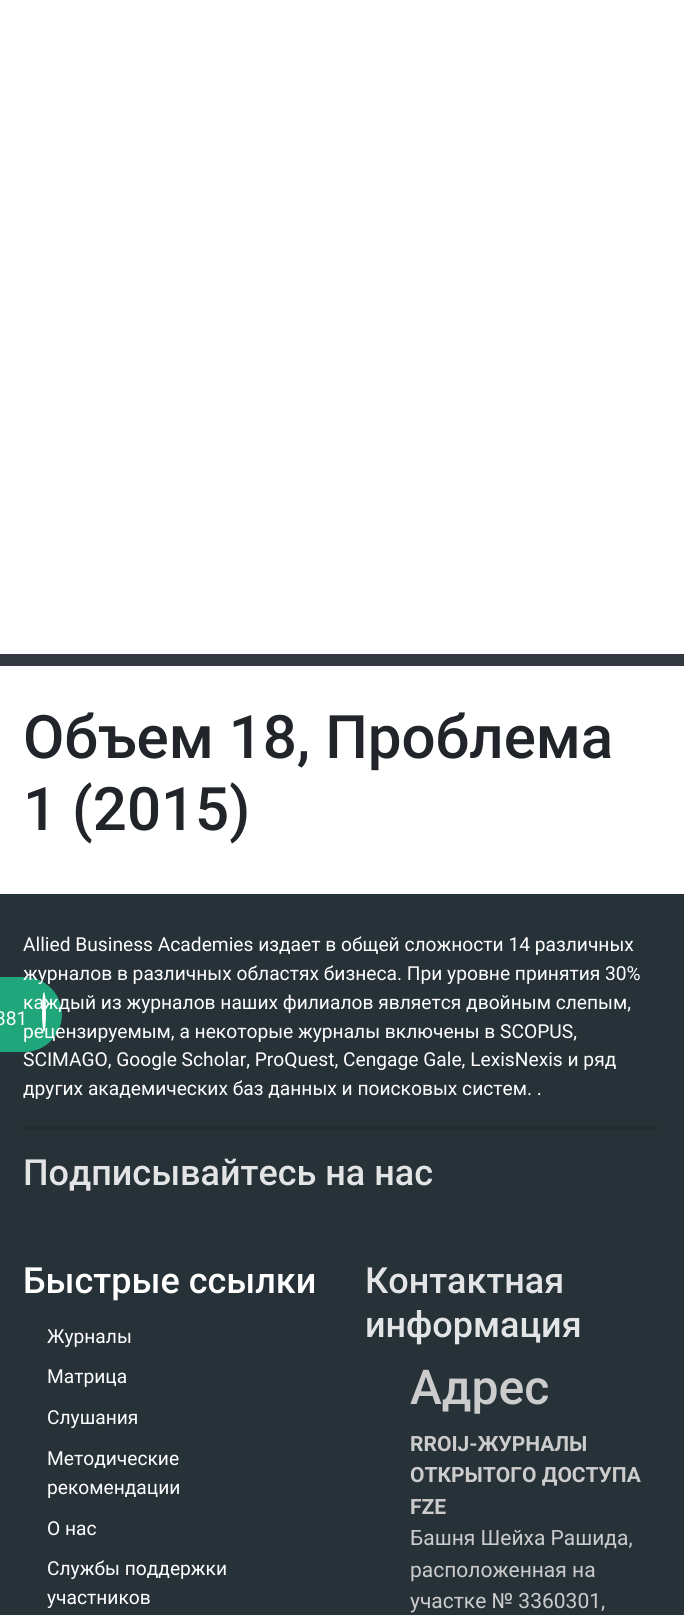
#include <cairo.h>
#include <math.h>
#include <stddef.h>

typedef struct { double x, y; const char *s; } line_t;

static void ink(cairo_t *ctx, unsigned color) {
    cairo_set_source_rgb(ctx, (color >> 16) / 255.0, (color >> 8 & 255) / 255.0, (color & 255) / 255.0);
}

int main(void) {
    cairo_surface_t *surface = cairo_image_surface_create(CAIRO_FORMAT_RGB24, 684, 1615);
    cairo_t *ctx = cairo_create(surface);
    cairo_font_options_t *options = cairo_font_options_create();
    cairo_font_options_set_hint_metrics(options, CAIRO_HINT_METRICS_OFF);
    cairo_font_options_set_hint_style(options, CAIRO_HINT_STYLE_NONE);
    cairo_set_font_options(ctx, options);
    cairo_set_miter_limit(ctx, 4);
    ink(ctx, 0xFFFFFF);
    cairo_paint(ctx);
    ink(ctx, 0x343A40);
    cairo_rectangle(ctx, 0, 654, 684, 12);
    cairo_fill(ctx);
    cairo_select_font_face(ctx, "Roboto Medium", CAIRO_FONT_SLANT_NORMAL, CAIRO_FONT_WEIGHT_NORMAL);
    cairo_set_font_size(ctx, 60);
    ink(ctx, 0x212529);
    cairo_move_to(ctx, 23, 758);
    cairo_show_text(ctx, "Объем 18, Проблема");
    cairo_move_to(ctx, 23, 830);
    cairo_show_text(ctx, "1 (2015)");
    ink(ctx, 0x263238);
    cairo_rectangle(ctx, 0, 894, 684, 721);
    cairo_fill(ctx);
    ink(ctx, 0x1FA67A);
    cairo_new_path(ctx);
    cairo_move_to(ctx, -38, 977);
    cairo_line_to(ctx, 24.5, 977);
    cairo_curve_to(ctx, 45, 977, 62, 994, 62, 1014.5);
    cairo_curve_to(ctx, 62, 1035, 45, 1052, 24.5, 1052);
    cairo_line_to(ctx, -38, 1052);
    cairo_close_path(ctx);
    cairo_fill(ctx);
    cairo_select_font_face(ctx, "Roboto", CAIRO_FONT_SLANT_NORMAL, CAIRO_FONT_WEIGHT_NORMAL);
    cairo_set_font_size(ctx, 19.2);
    ink(ctx, 0xFFFFFF);
    cairo_move_to(ctx, -5, 1025);
    cairo_show_text(ctx, "381");
    cairo_new_path(ctx);
    cairo_move_to(ctx, 44, 992);
    cairo_curve_to(ctx, 45, 992, 46, 1001, 46, 1012);
    cairo_curve_to(ctx, 46, 1023, 45, 1032, 44, 1032);
    cairo_curve_to(ctx, 43, 1032, 42, 1023, 42, 1012);
    cairo_curve_to(ctx, 42, 1001, 43, 992, 44, 992);
    cairo_close_path(ctx);
    cairo_fill(ctx);
    {
        static const line_t items[] = {
            {23, 951, "Allied Business Academies издает в общей сложности 14 различных"},
            {23, 980, "журналов в различных областях бизнеса. При уровне принятия 30%"},
            {23, 1009, "каждый из журналов наших филиалов является двойным слепым,"},
            {23, 1038, "рецензируемым, а некоторые журналы включены в SCOPUS,"},
            {23, 1066, "SCIMAGO, Google Scholar, ProQuest, Cengage Gale, LexisNexis и ряд"},
            {23, 1095, "других академических баз данных и поисковых систем. ."},
        };
        for (size_t i = 0; i < sizeof items / sizeof *items; i++) {
            cairo_move_to(ctx, items[i].x, items[i].y);
            cairo_show_text(ctx, items[i].s);
        }
    }
    ink(ctx, 0x222D32);
    cairo_rectangle(ctx, 23, 1127, 639, 2);
    cairo_fill(ctx);
    cairo_select_font_face(ctx, "Roboto Medium", CAIRO_FONT_SLANT_NORMAL, CAIRO_FONT_WEIGHT_NORMAL);
    cairo_set_font_size(ctx, 36);
    ink(ctx, 0xE3E4E5);
    cairo_move_to(ctx, 23, 1185);
    cairo_show_text(ctx, "Подписывайтесь на нас");
    ink(ctx, 0xFFFFFF);
    cairo_move_to(ctx, 23, 1293);
    cairo_show_text(ctx, "Быстрые ссылки");
    cairo_select_font_face(ctx, "Roboto", CAIRO_FONT_SLANT_NORMAL, CAIRO_FONT_WEIGHT_NORMAL);
    cairo_set_font_size(ctx, 19.2);
    {
        static const line_t items[] = {
            {47, 1343, "Журналы"},
            {47, 1383, "Матрица"},
            {47, 1424, "Слушания"},
            {47, 1465, "Методические"},
            {47, 1494, "рекомендации"},
            {47, 1535, "О нас"},
            {47, 1575, "Службы поддержки"},
            {47, 1604, "участников"},
        };
        for (size_t i = 0; i < sizeof items / sizeof *items; i++) {
            cairo_move_to(ctx, items[i].x, items[i].y);
            cairo_show_text(ctx, items[i].s);
        }
    }
    cairo_select_font_face(ctx, "Roboto Medium", CAIRO_FONT_SLANT_NORMAL, CAIRO_FONT_WEIGHT_NORMAL);
    cairo_set_font_size(ctx, 36);
    ink(ctx, 0xE3E4E5);
    cairo_move_to(ctx, 365, 1293);
    cairo_show_text(ctx, "Контактная");
    cairo_move_to(ctx, 365, 1337);
    cairo_show_text(ctx, "информация");
    cairo_set_font_size(ctx, 48);
    ink(ctx, 0xCCCCCC);
    cairo_move_to(ctx, 410, 1404);
    cairo_show_text(ctx, "Адрес");
    cairo_select_font_face(ctx, "Roboto", CAIRO_FONT_SLANT_NORMAL, CAIRO_FONT_WEIGHT_BOLD);
    cairo_set_font_size(ctx, 21);
    {
        static const line_t items[] = {
            {410, 1451, "RROIJ-ЖУРНАЛЫ"},
            {410, 1482, "ОТКРЫТОГО ДОСТУПА"},
            {410, 1514, "FZE"},
        };
        for (size_t i = 0; i < sizeof items / sizeof *items; i++) {
            cairo_move_to(ctx, items[i].x, items[i].y);
            cairo_show_text(ctx, items[i].s);
        }
    }
    cairo_select_font_face(ctx, "Roboto", CAIRO_FONT_SLANT_NORMAL, CAIRO_FONT_WEIGHT_NORMAL);
    {
        static const line_t items[] = {
            {410, 1545, "Башня Шейха Рашида,"},
            {410, 1577, "расположенная на"},
            {410, 1608, "участке № 3360301,"},
        };
        for (size_t i = 0; i < sizeof items / sizeof *items; i++) {
            cairo_move_to(ctx, items[i].x, items[i].y);
            cairo_show_text(ctx, items[i].s);
        }
    }
    cairo_surface_write_to_png(surface, "image.png");
    cairo_font_options_destroy(options);
    cairo_destroy(ctx);
    cairo_surface_destroy(surface);
    return 0;
}
